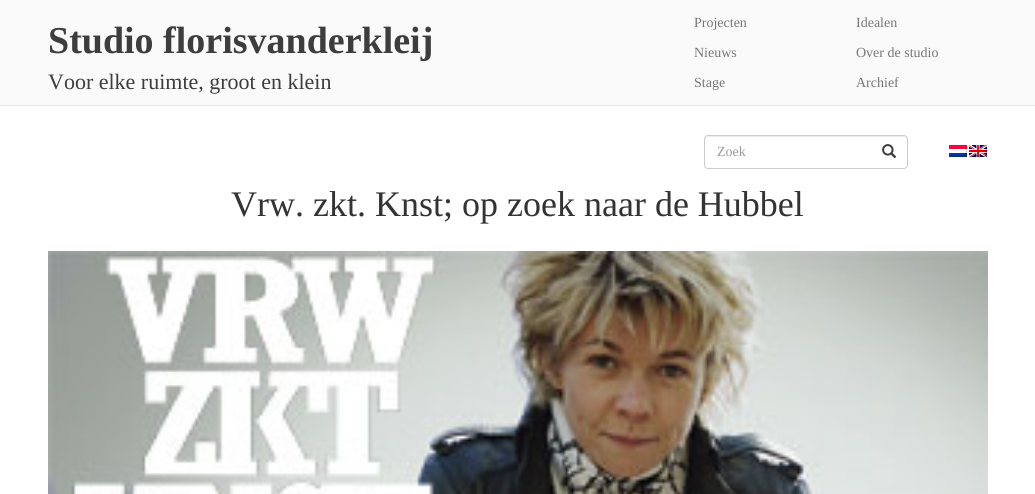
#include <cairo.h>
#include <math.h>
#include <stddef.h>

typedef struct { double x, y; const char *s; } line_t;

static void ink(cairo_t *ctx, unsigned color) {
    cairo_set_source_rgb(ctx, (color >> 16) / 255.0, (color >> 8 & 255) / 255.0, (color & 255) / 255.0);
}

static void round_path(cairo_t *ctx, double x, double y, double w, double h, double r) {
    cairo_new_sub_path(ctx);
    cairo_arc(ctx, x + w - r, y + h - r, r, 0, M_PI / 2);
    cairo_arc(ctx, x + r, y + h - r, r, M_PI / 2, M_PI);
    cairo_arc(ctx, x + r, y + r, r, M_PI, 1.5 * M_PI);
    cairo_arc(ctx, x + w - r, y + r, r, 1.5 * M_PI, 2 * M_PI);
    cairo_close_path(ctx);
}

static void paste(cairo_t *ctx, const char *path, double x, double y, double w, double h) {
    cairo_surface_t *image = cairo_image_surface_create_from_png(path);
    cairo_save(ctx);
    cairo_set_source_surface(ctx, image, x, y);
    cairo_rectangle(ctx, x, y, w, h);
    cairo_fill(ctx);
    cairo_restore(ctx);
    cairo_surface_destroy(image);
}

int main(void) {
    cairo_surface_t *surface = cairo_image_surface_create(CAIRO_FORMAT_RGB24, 1035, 494);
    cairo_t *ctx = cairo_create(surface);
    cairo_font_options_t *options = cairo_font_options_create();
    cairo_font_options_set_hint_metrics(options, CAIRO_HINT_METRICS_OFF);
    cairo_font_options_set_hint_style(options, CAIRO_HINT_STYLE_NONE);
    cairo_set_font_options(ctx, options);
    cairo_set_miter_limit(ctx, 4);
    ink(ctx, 0xFFFFFF);
    cairo_paint(ctx);
    ink(ctx, 0xFAFAFA);
    cairo_rectangle(ctx, 0, 0, 1035, 105);
    cairo_fill(ctx);
    ink(ctx, 0xE7E7E7);
    cairo_rectangle(ctx, 0, 105, 1035, 1);
    cairo_fill(ctx);
    cairo_select_font_face(ctx, "Liberation Serif", CAIRO_FONT_SLANT_NORMAL, CAIRO_FONT_WEIGHT_BOLD);
    cairo_set_font_size(ctx, 38);
    ink(ctx, 0x3D3D3D);
    cairo_move_to(ctx, 48, 53);
    cairo_show_text(ctx, "Studio florisvanderkleij");
    cairo_select_font_face(ctx, "Liberation Serif", CAIRO_FONT_SLANT_NORMAL, CAIRO_FONT_WEIGHT_NORMAL);
    cairo_set_font_size(ctx, 22);
    cairo_move_to(ctx, 48, 89);
    cairo_show_text(ctx, "Voor elke ruimte, groot en klein");
    cairo_set_font_size(ctx, 14);
    ink(ctx, 0x777777);
    {
        static const line_t items[] = {
            {694, 27, "Projecten"},
            {856, 27, "Idealen"},
            {694, 57, "Nieuws"},
            {856, 57, "Over de studio"},
            {694, 87, "Stage"},
            {856, 87, "Archief"},
        };
        for (size_t i = 0; i < sizeof items / sizeof *items; i++) {
            cairo_move_to(ctx, items[i].x, items[i].y);
            cairo_show_text(ctx, items[i].s);
        }
    }
    ink(ctx, 0xECECEC);
    cairo_new_path(ctx);
    cairo_move_to(ctx, 708, 137);
    cairo_line_to(ctx, 904, 137);
    cairo_curve_to(ctx, 906, 137, 907, 138, 907, 140);
    cairo_curve_to(ctx, 907, 138, 906, 136, 904, 136);
    cairo_line_to(ctx, 708, 136);
    cairo_curve_to(ctx, 706, 136, 705, 138, 705, 140);
    cairo_curve_to(ctx, 705, 138, 706, 137, 708, 137);
    cairo_close_path(ctx);
    cairo_fill(ctx);
    round_path(ctx, 704.5, 135.5, 203, 33, 3.5);
    ink(ctx, 0xCCCCCC);
    cairo_set_line_width(ctx, 1);
    cairo_stroke(ctx);
    ink(ctx, 0x999999);
    cairo_move_to(ctx, 717, 156);
    cairo_show_text(ctx, "Zoek");
    paste(ctx, "media/1.png", 882, 144, 15, 14);
    paste(ctx, "media/2.png", 949, 145, 18, 12);
    paste(ctx, "media/3.png", 969, 145, 18, 12);
    cairo_set_font_size(ctx, 36);
    ink(ctx, 0x333333);
    cairo_move_to(ctx, 231, 216);
    cairo_show_text(ctx, "Vrw. zkt. Knst; op zoek naar de Hubbel");
    paste(ctx, "media/4.png", 48, 251, 940, 243);
    cairo_surface_write_to_png(surface, "image.png");
    cairo_font_options_destroy(options);
    cairo_destroy(ctx);
    cairo_surface_destroy(surface);
    return 0;
}
